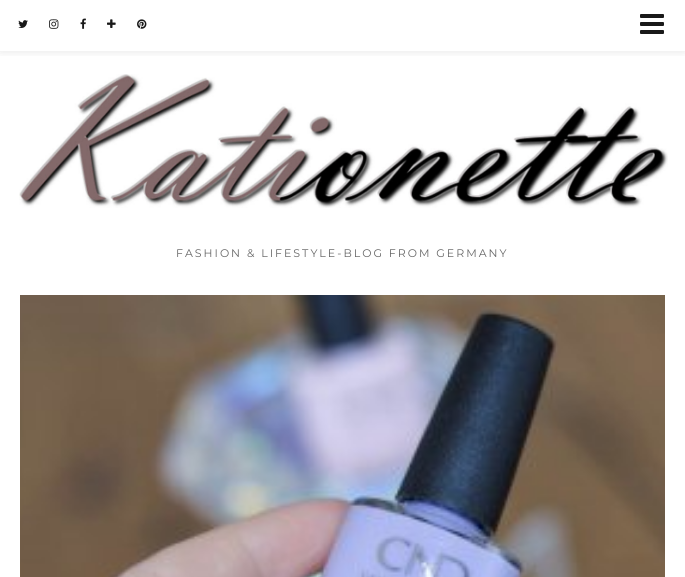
#include <cairo.h>
#include <math.h>
#include <stddef.h>


static void ink(cairo_t *ctx, unsigned color) {
    cairo_set_source_rgb(ctx, (color >> 16) / 255.0, (color >> 8 & 255) / 255.0, (color & 255) / 255.0);
}

static void write_spaced(cairo_t *ctx, double x, double y, const char *s, double letter, double word) {
    cairo_move_to(ctx, x, y);
    while (*s) {
        char ch[5] = {0};
        int n = 0;
        do ch[n++] = *s++; while ((*s & 0xC0) == 0x80);
        cairo_show_text(ctx, ch);
        cairo_rel_move_to(ctx, letter + word * (*ch == ' '), 0);
    }
}

static void round_path(cairo_t *ctx, double x, double y, double w, double h, double r) {
    cairo_new_sub_path(ctx);
    cairo_arc(ctx, x + w - r, y + h - r, r, 0, M_PI / 2);
    cairo_arc(ctx, x + r, y + h - r, r, M_PI / 2, M_PI);
    cairo_arc(ctx, x + r, y + r, r, M_PI, 1.5 * M_PI);
    cairo_arc(ctx, x + w - r, y + r, r, 1.5 * M_PI, 2 * M_PI);
    cairo_close_path(ctx);
}

static void blur_box(cairo_t *ctx, double x, double y, double w, double h, double r, double blur, double alpha) {
    cairo_push_group_with_content(ctx, CAIRO_CONTENT_ALPHA);
    cairo_set_operator(ctx, CAIRO_OPERATOR_SOURCE);
    for (int i = 15; i >= -15 && fmin(w, h) + blur * i / 3 > 0; i -= 2) {
        double e = blur * i / 6;
        cairo_set_source_rgba(ctx, 0, 0, 0, alpha * erfc((i - 1) / 8.5) / 2);
        round_path(ctx, x - e, y - e, w + 2 * e, h + 2 * e, fmax(0, fmin(r + e + blur * .6, fmin(w, h) / 2 + e)));
        cairo_fill(ctx);
    }
    cairo_pattern_t *soft = cairo_pop_group(ctx);
    cairo_mask(ctx, soft);
    cairo_pattern_destroy(soft);
}

static void paste(cairo_t *ctx, const char *path, double x, double y, double w, double h) {
    cairo_surface_t *image = cairo_image_surface_create_from_png(path);
    cairo_save(ctx);
    cairo_set_source_surface(ctx, image, x, y);
    cairo_rectangle(ctx, x, y, w, h);
    cairo_fill(ctx);
    cairo_restore(ctx);
    cairo_surface_destroy(image);
}

int main(void) {
    cairo_surface_t *surface = cairo_image_surface_create(CAIRO_FORMAT_RGB24, 685, 577);
    cairo_t *ctx = cairo_create(surface);
    cairo_font_options_t *options = cairo_font_options_create();
    cairo_font_options_set_hint_metrics(options, CAIRO_HINT_METRICS_OFF);
    cairo_font_options_set_hint_style(options, CAIRO_HINT_STYLE_NONE);
    cairo_set_font_options(ctx, options);
    cairo_set_miter_limit(ctx, 4);
    ink(ctx, 0xFFFFFF);
    cairo_paint(ctx);
    cairo_save(ctx);
    cairo_rectangle(ctx, 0, 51, 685, 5);
    cairo_clip(ctx);
    ink(ctx, 0x1A1A1A);
    blur_box(ctx, 0, 1, 685, 51, 0, 5, 0.1);
    cairo_restore(ctx);
    paste(ctx, "media/1.png", 18, 20, 10, 8);
    paste(ctx, "media/2.png", 49, 19, 10, 10);
    paste(ctx, "media/3.png", 80, 18, 6, 11);
    paste(ctx, "media/4.png", 107, 19, 9, 9);
    paste(ctx, "media/5.png", 137, 19, 10, 10);
    paste(ctx, "media/6.png", 640, 14, 24, 20);
    paste(ctx, "media/7.png", 19, 74, 649, 134);
    cairo_select_font_face(ctx, "Montserrat Thin", CAIRO_FONT_SLANT_NORMAL, CAIRO_FONT_WEIGHT_NORMAL);
    cairo_set_font_size(ctx, 11);
    ink(ctx, 0x666666);
    write_spaced(ctx, 176, 257, "FASHION & LIFESTYLE-BLOG FROM GERMANY", 2, 0);
    paste(ctx, "media/8.png", 20, 295, 645, 282);
    cairo_surface_write_to_png(surface, "image.png");
    cairo_font_options_destroy(options);
    cairo_destroy(ctx);
    cairo_surface_destroy(surface);
    return 0;
}
